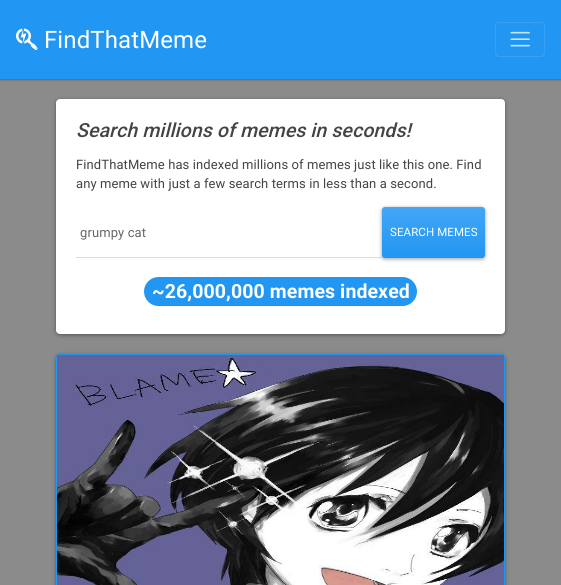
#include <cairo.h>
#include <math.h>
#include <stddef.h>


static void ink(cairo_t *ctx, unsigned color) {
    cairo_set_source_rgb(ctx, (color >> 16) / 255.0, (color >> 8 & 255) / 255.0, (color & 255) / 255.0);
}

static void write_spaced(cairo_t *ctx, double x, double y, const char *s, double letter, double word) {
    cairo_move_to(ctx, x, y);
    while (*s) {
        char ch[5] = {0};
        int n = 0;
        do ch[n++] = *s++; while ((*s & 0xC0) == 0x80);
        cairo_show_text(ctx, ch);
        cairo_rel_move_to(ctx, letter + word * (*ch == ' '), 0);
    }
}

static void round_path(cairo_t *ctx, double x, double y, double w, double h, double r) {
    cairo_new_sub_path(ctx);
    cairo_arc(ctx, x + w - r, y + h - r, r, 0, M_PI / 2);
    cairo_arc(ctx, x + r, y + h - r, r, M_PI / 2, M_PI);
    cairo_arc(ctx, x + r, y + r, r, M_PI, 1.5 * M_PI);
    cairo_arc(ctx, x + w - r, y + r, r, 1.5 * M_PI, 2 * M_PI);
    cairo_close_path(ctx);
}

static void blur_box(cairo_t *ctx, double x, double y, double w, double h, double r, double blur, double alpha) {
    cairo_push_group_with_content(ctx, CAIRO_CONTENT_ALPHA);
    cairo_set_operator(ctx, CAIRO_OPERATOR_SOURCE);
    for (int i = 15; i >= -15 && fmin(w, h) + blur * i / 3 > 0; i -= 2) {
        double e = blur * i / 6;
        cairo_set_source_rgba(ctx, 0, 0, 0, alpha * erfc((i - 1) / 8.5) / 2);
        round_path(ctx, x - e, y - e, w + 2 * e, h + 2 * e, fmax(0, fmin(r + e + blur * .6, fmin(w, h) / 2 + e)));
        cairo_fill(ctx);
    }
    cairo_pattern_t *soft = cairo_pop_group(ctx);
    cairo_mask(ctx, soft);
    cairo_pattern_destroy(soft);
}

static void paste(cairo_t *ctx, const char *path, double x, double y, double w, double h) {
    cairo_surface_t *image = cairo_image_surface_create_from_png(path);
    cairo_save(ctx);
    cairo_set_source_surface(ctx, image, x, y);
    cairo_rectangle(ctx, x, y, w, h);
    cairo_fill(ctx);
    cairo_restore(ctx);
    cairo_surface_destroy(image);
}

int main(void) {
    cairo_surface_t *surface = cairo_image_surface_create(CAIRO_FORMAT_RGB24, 561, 585);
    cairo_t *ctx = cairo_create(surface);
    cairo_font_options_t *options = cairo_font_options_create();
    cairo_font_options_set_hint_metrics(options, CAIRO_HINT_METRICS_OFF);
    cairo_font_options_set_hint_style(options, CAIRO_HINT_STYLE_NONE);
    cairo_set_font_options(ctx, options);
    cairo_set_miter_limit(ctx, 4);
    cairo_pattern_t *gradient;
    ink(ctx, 0x8B8B8B);
    cairo_paint(ctx);
    ink(ctx, 0x000000);
    blur_box(ctx, 0, 1, 561, 79, 0, 1, 0.3);
    ink(ctx, 0x2196F3);
    cairo_rectangle(ctx, 0, 0, 561, 79);
    cairo_fill(ctx);
    paste(ctx, "media/1.png", 16, 28, 22, 22);
    cairo_select_font_face(ctx, "Roboto", CAIRO_FONT_SLANT_NORMAL, CAIRO_FONT_WEIGHT_NORMAL);
    cairo_set_font_size(ctx, 24);
    ink(ctx, 0xFFFFFF);
    write_spaced(ctx, 44, 48, "FindThatMeme", 0.1, 0);
    round_path(ctx, 495.5, 22.5, 49, 34, 3.5);
    ink(ctx, 0x37A1F4);
    cairo_set_line_width(ctx, 1);
    cairo_stroke(ctx);
    paste(ctx, "media/2.png", 510, 31, 20, 16);
    ink(ctx, 0x000000);
    blur_box(ctx, 56, 100, 449, 235, 4, 2, 0.4);
    ink(ctx, 0xFFFFFF);
    round_path(ctx, 56, 99, 449, 235, 4);
    cairo_fill(ctx);
    cairo_select_font_face(ctx, "Roboto Medium", CAIRO_FONT_SLANT_ITALIC, CAIRO_FONT_WEIGHT_NORMAL);
    cairo_set_font_size(ctx, 19.5);
    ink(ctx, 0x444444);
    write_spaced(ctx, 76, 137, "Search millions of memes in seconds!", 0.1, 0);
    cairo_select_font_face(ctx, "Roboto", CAIRO_FONT_SLANT_NORMAL, CAIRO_FONT_WEIGHT_NORMAL);
    cairo_set_font_size(ctx, 13);
    write_spaced(ctx, 76, 169, "FindThatMeme has indexed millions of memes just like this one. Find", 0.1, 0);
    write_spaced(ctx, 76, 188, "any meme with just a few search terms in less than a second.", 0.1, 0);
    ink(ctx, 0xDDDDDD);
    cairo_rectangle(ctx, 76, 257, 306, 1);
    cairo_fill(ctx);
    ink(ctx, 0x666666);
    write_spaced(ctx, 80, 237, "grumpy cat", 0.1, 0);
    ink(ctx, 0x000000);
    blur_box(ctx, 382, 208, 103, 51, 3, 2, 0.4);
    gradient = cairo_pattern_create_linear(434, 207, 434, 258);
    cairo_pattern_add_color_stop_rgba(gradient, 0, 0.259, 0.651, 0.961, 1);
    cairo_pattern_add_color_stop_rgba(gradient, 1, 0.129, 0.588, 0.953, 1);
    cairo_set_source(ctx, gradient);
    cairo_pattern_destroy(gradient);
    round_path(ctx, 382, 207, 103, 51, 3);
    cairo_fill(ctx);
    cairo_set_font_size(ctx, 11.5);
    ink(ctx, 0xFFFFFF);
    write_spaced(ctx, 390, 236, "SEARCH MEMES", 0.1, 0);
    ink(ctx, 0x2196F3);
    round_path(ctx, 144, 277, 273, 29, 14.5);
    cairo_fill(ctx);
    cairo_select_font_face(ctx, "Roboto", CAIRO_FONT_SLANT_NORMAL, CAIRO_FONT_WEIGHT_BOLD);
    cairo_set_font_size(ctx, 19.5);
    ink(ctx, 0xFFFFFF);
    write_spaced(ctx, 152, 298, "~26,000,000 memes indexed", 0.1, 0);
    ink(ctx, 0x000000);
    blur_box(ctx, 56, 355, 449, 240, 4, 2, 0.4);
    round_path(ctx, 56.5, 354.5, 448, 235, 3.5);
    ink(ctx, 0x2196F3);
    cairo_stroke(ctx);
    paste(ctx, "media/3.png", 57, 355, 447, 230);
    cairo_surface_write_to_png(surface, "image.png");
    cairo_font_options_destroy(options);
    cairo_destroy(ctx);
    cairo_surface_destroy(surface);
    return 0;
}
